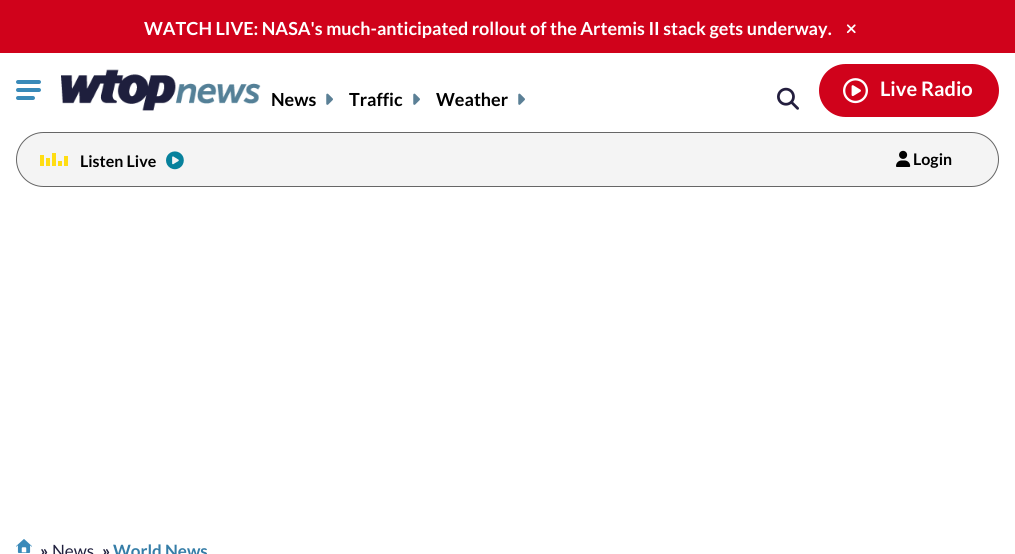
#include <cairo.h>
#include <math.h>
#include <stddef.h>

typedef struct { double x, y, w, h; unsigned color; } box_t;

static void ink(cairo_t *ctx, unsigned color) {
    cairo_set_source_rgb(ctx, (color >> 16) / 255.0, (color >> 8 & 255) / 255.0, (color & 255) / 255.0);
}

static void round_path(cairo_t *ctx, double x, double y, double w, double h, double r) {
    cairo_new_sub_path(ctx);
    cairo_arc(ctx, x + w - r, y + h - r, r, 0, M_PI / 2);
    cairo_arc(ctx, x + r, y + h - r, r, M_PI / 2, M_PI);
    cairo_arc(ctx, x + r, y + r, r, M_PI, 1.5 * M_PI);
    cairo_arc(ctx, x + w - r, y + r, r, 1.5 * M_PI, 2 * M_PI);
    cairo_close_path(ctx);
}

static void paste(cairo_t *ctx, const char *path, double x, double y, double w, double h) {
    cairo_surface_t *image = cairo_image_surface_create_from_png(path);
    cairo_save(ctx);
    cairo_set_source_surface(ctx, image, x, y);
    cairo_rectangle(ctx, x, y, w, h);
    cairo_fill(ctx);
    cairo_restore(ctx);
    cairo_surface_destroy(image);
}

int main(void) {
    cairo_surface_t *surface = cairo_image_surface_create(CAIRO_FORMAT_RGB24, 1015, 554);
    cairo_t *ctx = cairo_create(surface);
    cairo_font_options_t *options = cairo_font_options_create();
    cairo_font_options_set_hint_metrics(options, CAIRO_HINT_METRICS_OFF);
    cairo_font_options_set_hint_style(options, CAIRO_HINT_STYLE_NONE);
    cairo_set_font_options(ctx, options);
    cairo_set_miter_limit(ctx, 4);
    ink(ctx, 0xFFFFFF);
    cairo_paint(ctx);
    ink(ctx, 0xD0021B);
    cairo_rectangle(ctx, 0, 0, 1015, 53);
    cairo_fill(ctx);
    cairo_select_font_face(ctx, "Lato", CAIRO_FONT_SLANT_NORMAL, CAIRO_FONT_WEIGHT_BOLD);
    cairo_set_font_size(ctx, 18);
    ink(ctx, 0xFFFFFF);
    cairo_move_to(ctx, 144, 35);
    cairo_show_text(ctx, "WATCH LIVE: NASA's much-anticipated rollout of the Artemis II stack gets underway.");
    paste(ctx, "media/1.png", 846, 24, 10, 10);
    ink(ctx, 0x398AB9);
    round_path(ctx, 16, 80, 25, 4, 2);
    cairo_fill(ctx);
    round_path(ctx, 16, 88, 25, 4, 2);
    cairo_fill(ctx);
    round_path(ctx, 16, 96, 19, 4, 2);
    cairo_fill(ctx);
    paste(ctx, "media/2.png", 61, 69, 200, 42);
    ink(ctx, 0xD0021B);
    round_path(ctx, 819, 64, 180, 53, 26.5);
    cairo_fill(ctx);
    paste(ctx, "media/3.png", 843, 78, 25, 26);
    cairo_set_font_size(ctx, 20);
    ink(ctx, 0xFFFFFF);
    cairo_move_to(ctx, 880, 96);
    cairo_show_text(ctx, "Live Radio");
    cairo_set_font_size(ctx, 18);
    ink(ctx, 0x000000);
    cairo_move_to(ctx, 271, 106);
    cairo_show_text(ctx, "News");
    paste(ctx, "media/4.png", 326, 93, 7, 12);
    cairo_move_to(ctx, 349, 106);
    cairo_show_text(ctx, "Traffic");
    paste(ctx, "media/4.png", 413, 93, 7, 12);
    cairo_move_to(ctx, 436, 106);
    cairo_show_text(ctx, "Weather");
    paste(ctx, "media/4.png", 518, 93, 7, 12);
    paste(ctx, "media/5.png", 777, 87, 22, 23);
    ink(ctx, 0xF4F4F4);
    round_path(ctx, 16.5, 132.5, 982, 54, 27);
    cairo_fill_preserve(ctx);
    ink(ctx, 0x666666);
    cairo_set_line_width(ctx, 1);
    cairo_stroke(ctx);
    {
        static const box_t items[] = {
            {40, 155, 4, 11, 0xFFDD13},
            {46, 158, 4, 8, 0xFFDD13},
            {52, 153, 4, 13, 0xFFDD13},
            {58, 161, 4, 5, 0xFFDD13},
            {64, 156, 4, 10, 0xFFDD13},
        };
        for (size_t i = 0; i < sizeof items / sizeof *items; i++) {
            ink(ctx, items[i].color);
            cairo_rectangle(ctx, items[i].x, items[i].y, items[i].w, items[i].h);
            cairo_fill(ctx);
        }
    }
    cairo_set_font_size(ctx, 16);
    ink(ctx, 0x000000);
    cairo_move_to(ctx, 80, 167);
    cairo_show_text(ctx, "Listen Live");
    paste(ctx, "media/6.png", 166, 151, 18, 19);
    paste(ctx, "media/7.png", 896, 150, 15, 17);
    cairo_move_to(ctx, 913, 165);
    cairo_show_text(ctx, "Login");
    paste(ctx, "media/8.png", 16, 539, 16, 14);
    cairo_set_font_size(ctx, 17);
    ink(ctx, 0x20203E);
    cairo_move_to(ctx, 40, 557);
    cairo_show_text(ctx, "»");
    cairo_select_font_face(ctx, "Lato", CAIRO_FONT_SLANT_NORMAL, CAIRO_FONT_WEIGHT_NORMAL);
    cairo_move_to(ctx, 52, 557);
    cairo_show_text(ctx, "News");
    cairo_select_font_face(ctx, "Lato", CAIRO_FONT_SLANT_NORMAL, CAIRO_FONT_WEIGHT_BOLD);
    cairo_move_to(ctx, 102, 557);
    cairo_show_text(ctx, "»");
    ink(ctx, 0x357DA7);
    cairo_move_to(ctx, 113, 557);
    cairo_show_text(ctx, "World News");
    cairo_surface_write_to_png(surface, "image.png");
    cairo_font_options_destroy(options);
    cairo_destroy(ctx);
    cairo_surface_destroy(surface);
    return 0;
}
